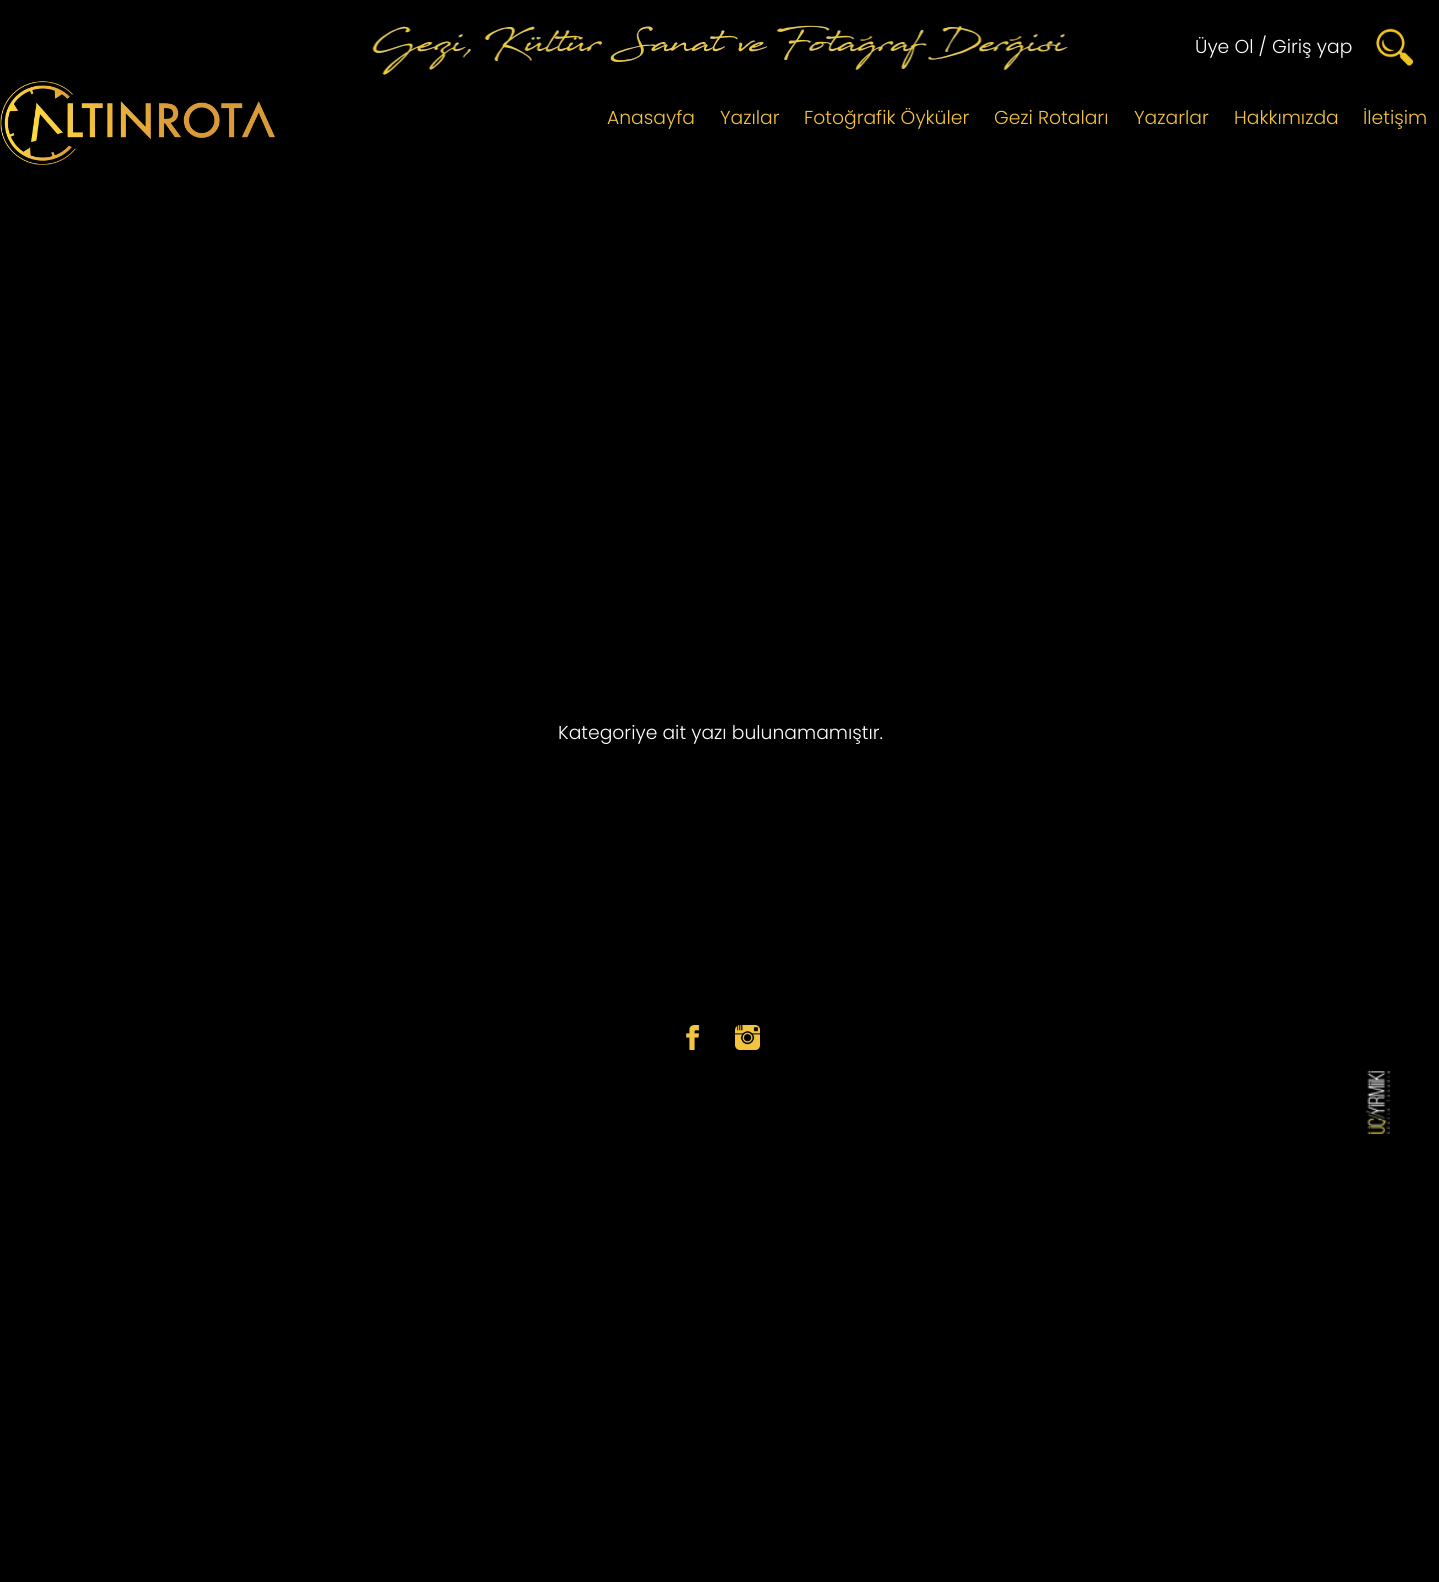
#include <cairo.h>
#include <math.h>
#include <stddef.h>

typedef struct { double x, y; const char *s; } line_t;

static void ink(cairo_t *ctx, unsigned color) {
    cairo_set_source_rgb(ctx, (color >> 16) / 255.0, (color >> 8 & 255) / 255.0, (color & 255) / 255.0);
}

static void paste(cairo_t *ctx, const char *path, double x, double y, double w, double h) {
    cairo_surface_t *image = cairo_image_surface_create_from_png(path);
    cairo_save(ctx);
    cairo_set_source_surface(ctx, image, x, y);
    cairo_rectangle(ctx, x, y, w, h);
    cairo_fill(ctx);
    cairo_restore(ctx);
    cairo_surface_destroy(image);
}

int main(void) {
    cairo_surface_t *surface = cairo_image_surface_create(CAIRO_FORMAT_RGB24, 1439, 1582);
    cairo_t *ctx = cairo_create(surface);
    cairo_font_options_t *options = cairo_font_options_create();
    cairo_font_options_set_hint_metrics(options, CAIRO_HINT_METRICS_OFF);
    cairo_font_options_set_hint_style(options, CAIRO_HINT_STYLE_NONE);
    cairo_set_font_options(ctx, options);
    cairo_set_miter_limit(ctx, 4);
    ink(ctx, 0x000000);
    cairo_paint(ctx);
    paste(ctx, "media/1.png", 372, 25, 696, 50);
    cairo_select_font_face(ctx, "Poppins Light", CAIRO_FONT_SLANT_NORMAL, CAIRO_FONT_WEIGHT_NORMAL);
    cairo_set_font_size(ctx, 18.75);
    ink(ctx, 0xFFFFFF);
    cairo_move_to(ctx, 1195, 53);
    cairo_show_text(ctx, "Üye Ol / Giriş yap");
    paste(ctx, "media/2.png", 1376, 28, 38, 38);
    paste(ctx, "media/3.png", 0, 81, 275, 84);
    ink(ctx, 0xF3C33E);
    {
        static const line_t items[] = {
            {607, 124, "Anasayfa"},
            {720, 124, "Yazılar"},
            {804, 124, "Fotoğrafik Öyküler"},
            {994, 124, "Gezi Rotaları"},
            {1134, 124, "Yazarlar"},
            {1234, 124, "Hakkımızda"},
            {1363, 124, "İletişim"},
        };
        for (size_t i = 0; i < sizeof items / sizeof *items; i++) {
            cairo_move_to(ctx, items[i].x, items[i].y);
            cairo_show_text(ctx, items[i].s);
        }
    }
    ink(ctx, 0xFFFFFF);
    cairo_move_to(ctx, 558, 739);
    cairo_show_text(ctx, "Kategoriye ait yazı bulunamamıştır.");
    paste(ctx, "media/4.png", 686, 1025, 14, 25);
    paste(ctx, "media/5.png", 735, 1025, 25, 25);
    paste(ctx, "media/6.png", 1366, 1071, 24, 63);
    cairo_surface_write_to_png(surface, "image.png");
    cairo_font_options_destroy(options);
    cairo_destroy(ctx);
    cairo_surface_destroy(surface);
    return 0;
}
